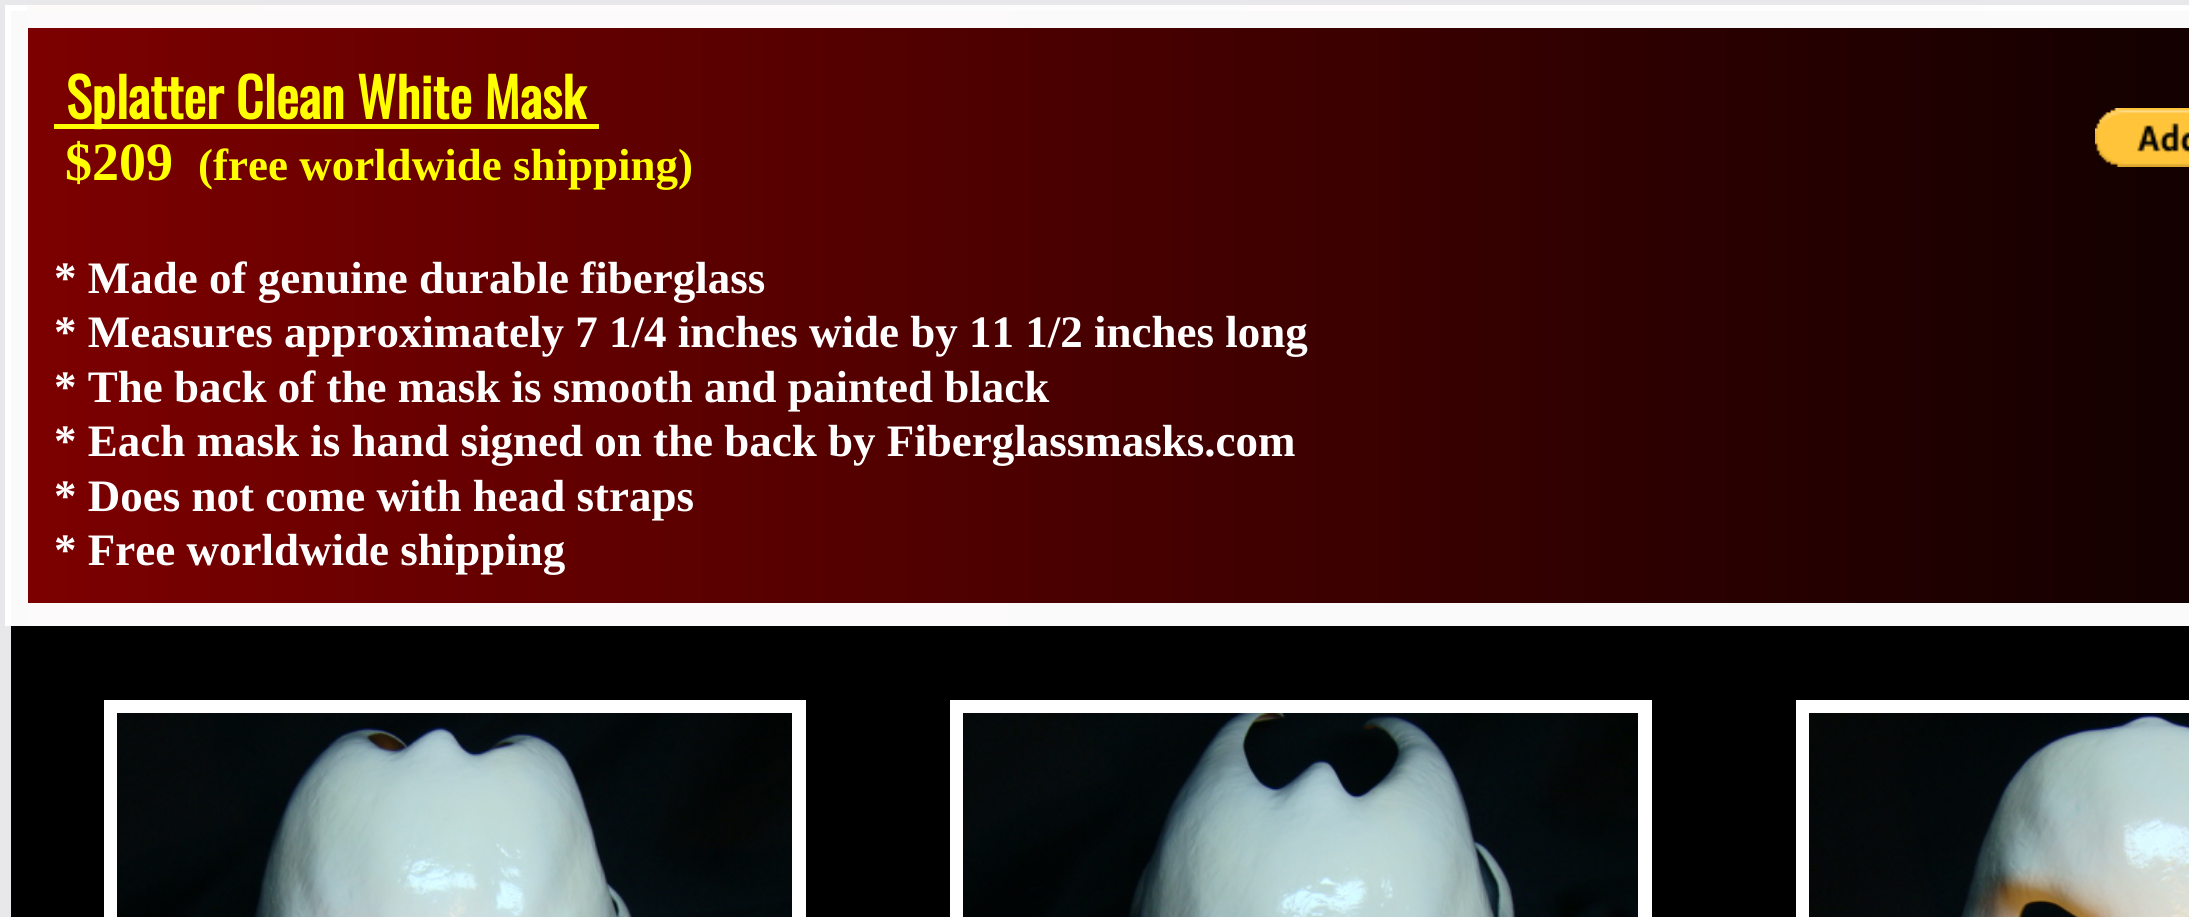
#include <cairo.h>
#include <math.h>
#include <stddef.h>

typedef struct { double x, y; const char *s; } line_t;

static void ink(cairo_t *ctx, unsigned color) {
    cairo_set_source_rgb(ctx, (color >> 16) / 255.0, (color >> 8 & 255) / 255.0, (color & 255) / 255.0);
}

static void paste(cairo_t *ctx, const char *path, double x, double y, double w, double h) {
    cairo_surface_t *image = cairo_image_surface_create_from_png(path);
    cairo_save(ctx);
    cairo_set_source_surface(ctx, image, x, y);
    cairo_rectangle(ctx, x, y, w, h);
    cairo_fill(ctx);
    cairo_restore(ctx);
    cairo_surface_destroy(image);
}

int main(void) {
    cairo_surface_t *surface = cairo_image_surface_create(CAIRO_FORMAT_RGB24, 2189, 917);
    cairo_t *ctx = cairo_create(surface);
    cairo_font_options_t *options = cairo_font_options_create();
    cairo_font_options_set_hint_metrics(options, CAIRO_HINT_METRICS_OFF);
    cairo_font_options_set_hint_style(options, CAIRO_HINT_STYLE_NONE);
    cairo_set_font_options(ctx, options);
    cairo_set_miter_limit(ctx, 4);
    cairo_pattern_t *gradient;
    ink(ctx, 0x000000);
    cairo_paint(ctx);
    cairo_rectangle(ctx, 5.5, 5.5, 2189, 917);
    ink(ctx, 0xE8E8EA);
    cairo_set_line_width(ctx, 11);
    cairo_stroke(ctx);
    gradient = cairo_pattern_create_linear(27, 315, 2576, 315);
    cairo_pattern_add_color_stop_rgba(gradient, 0, 0.498, 0, 0, 0.98);
    cairo_pattern_add_color_stop_rgba(gradient, 1, 0.498, 0, 0, 0);
    cairo_set_source(ctx, gradient);
    cairo_pattern_destroy(gradient);
    cairo_rectangle(ctx, 27, 5, 2162, 621);
    cairo_fill(ctx);
    cairo_rectangle(ctx, 16.5, 16.5, 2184, 598);
    cairo_set_source_rgba(ctx, 1, 1, 1, 0.98);
    cairo_set_line_width(ctx, 23);
    cairo_stroke(ctx);
    ink(ctx, 0xFFFF00);
    cairo_rectangle(ctx, 54, 124, 545, 5);
    cairo_fill(ctx);
    cairo_select_font_face(ctx, "Oswald", CAIRO_FONT_SLANT_NORMAL, CAIRO_FONT_WEIGHT_BOLD);
    cairo_set_font_size(ctx, 54);
    cairo_move_to(ctx, 66, 119);
    cairo_show_text(ctx, "Splatter Clean White Mask");
    cairo_select_font_face(ctx, "Liberation Serif", CAIRO_FONT_SLANT_NORMAL, CAIRO_FONT_WEIGHT_BOLD);
    cairo_move_to(ctx, 65, 180);
    cairo_show_text(ctx, "$209");
    cairo_set_font_size(ctx, 45);
    cairo_move_to(ctx, 198, 180);
    cairo_show_text(ctx, "(free worldwide shipping)");
    ink(ctx, 0xFFFFFF);
    {
        static const line_t items[] = {
            {54, 293, "* Made of genuine durable fiberglass"},
            {54, 347, "* Measures approximately 7 1/4 inches wide by 11 1/2 inches long"},
            {54, 402, "* The back of the mask is smooth and painted black"},
            {54, 456, "* Each mask is hand signed on the back by Fiberglassmasks.com"},
            {54, 511, "* Does not come with head straps"},
            {54, 565, "* Free worldwide shipping"},
        };
        for (size_t i = 0; i < sizeof items / sizeof *items; i++) {
            cairo_move_to(ctx, items[i].x, items[i].y);
            cairo_show_text(ctx, items[i].s);
        }
    }
    paste(ctx, "media/1.png", 2095, 108, 94, 59);
    cairo_rectangle(ctx, 111, 707, 688, 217);
    cairo_set_line_width(ctx, 14);
    cairo_stroke(ctx);
    paste(ctx, "media/2.png", 117, 713, 675, 204);
    cairo_rectangle(ctx, 957, 707, 688, 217);
    cairo_stroke(ctx);
    paste(ctx, "media/3.png", 963, 713, 675, 204);
    cairo_rectangle(ctx, 1803, 707, 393, 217);
    cairo_stroke(ctx);
    paste(ctx, "media/4.png", 1809, 713, 380, 204);
    cairo_surface_write_to_png(surface, "image.png");
    cairo_font_options_destroy(options);
    cairo_destroy(ctx);
    cairo_surface_destroy(surface);
    return 0;
}
